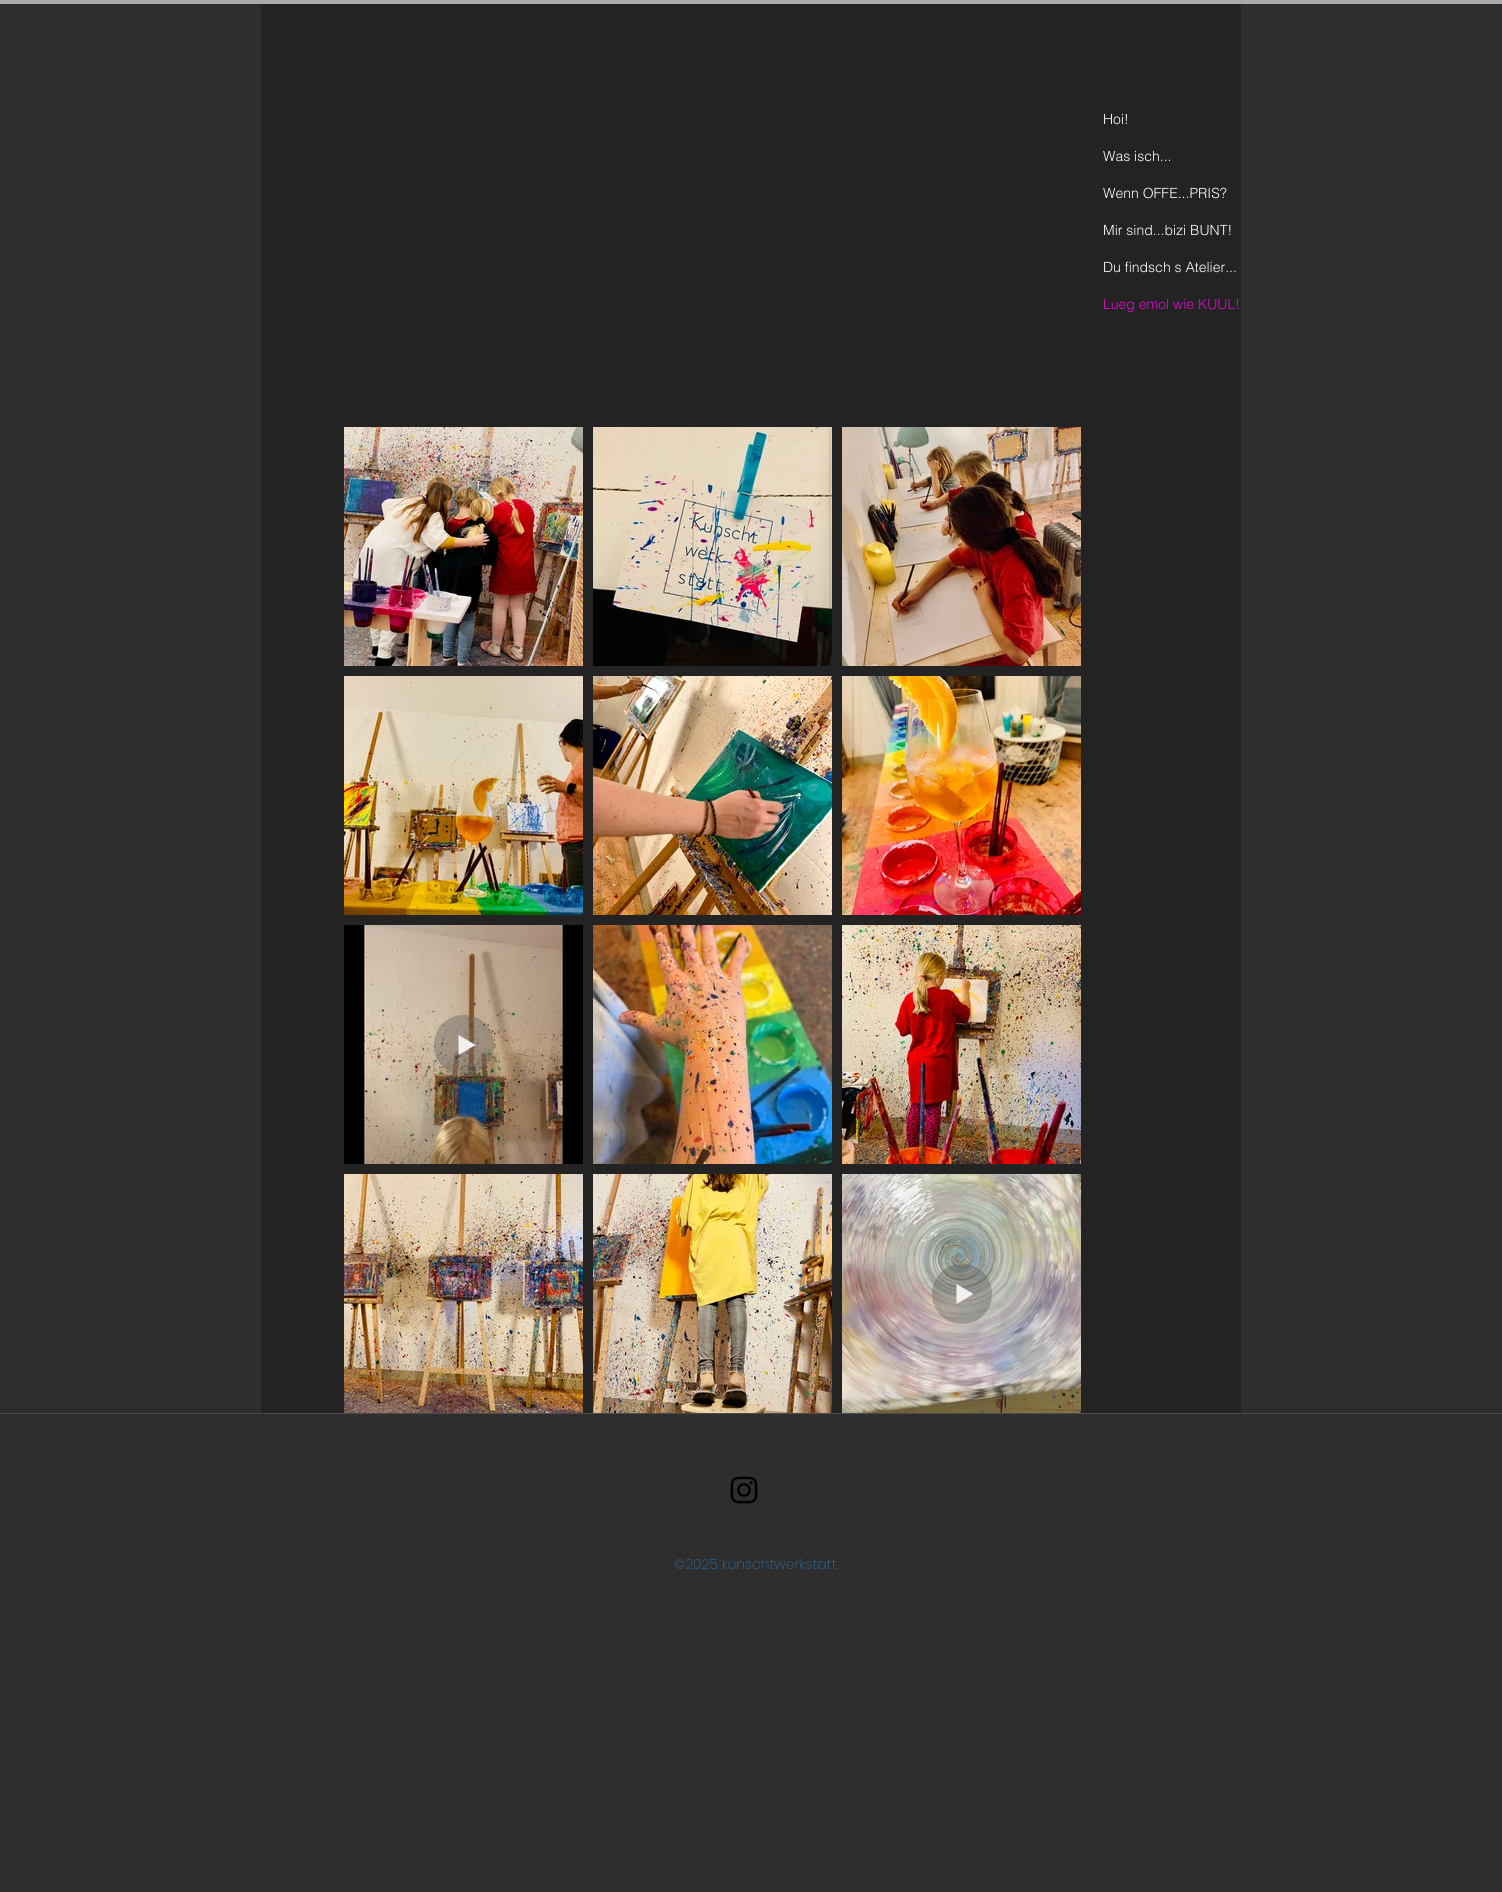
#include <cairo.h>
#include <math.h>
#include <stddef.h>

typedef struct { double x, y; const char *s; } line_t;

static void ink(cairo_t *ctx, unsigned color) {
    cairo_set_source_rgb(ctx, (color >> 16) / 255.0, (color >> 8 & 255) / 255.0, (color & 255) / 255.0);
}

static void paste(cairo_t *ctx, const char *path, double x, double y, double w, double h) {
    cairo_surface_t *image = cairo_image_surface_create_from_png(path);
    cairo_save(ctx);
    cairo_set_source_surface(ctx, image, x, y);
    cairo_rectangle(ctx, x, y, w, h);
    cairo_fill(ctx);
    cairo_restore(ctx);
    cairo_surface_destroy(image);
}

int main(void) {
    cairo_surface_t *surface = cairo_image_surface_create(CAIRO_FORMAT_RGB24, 1502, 1892);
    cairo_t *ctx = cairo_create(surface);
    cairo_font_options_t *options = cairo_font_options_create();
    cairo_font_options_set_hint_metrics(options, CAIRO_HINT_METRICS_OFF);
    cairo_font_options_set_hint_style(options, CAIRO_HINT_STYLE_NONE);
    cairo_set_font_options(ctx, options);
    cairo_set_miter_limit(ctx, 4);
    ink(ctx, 0x2F2E2E);
    cairo_paint(ctx);
    ink(ctx, 0xACABAB);
    cairo_rectangle(ctx, 0, 0, 1502, 4);
    cairo_fill(ctx);
    ink(ctx, 0x232323);
    cairo_rectangle(ctx, 261, 4, 980, 1409);
    cairo_fill(ctx);
    cairo_select_font_face(ctx, "helvetica Light", CAIRO_FONT_SLANT_NORMAL, CAIRO_FONT_WEIGHT_NORMAL);
    cairo_set_font_size(ctx, 14);
    ink(ctx, 0xFFFFFF);
    {
        static const line_t items[] = {
            {1103, 124, "Hoi!"},
            {1103, 161, "Was isch..."},
            {1103, 198, "Wenn OFFE...PRIS?"},
            {1103, 235, "Mir sind...bizi BUNT!"},
            {1103, 272, "Du findsch s Atelier..."},
        };
        for (size_t i = 0; i < sizeof items / sizeof *items; i++) {
            cairo_move_to(ctx, items[i].x, items[i].y);
            cairo_show_text(ctx, items[i].s);
        }
    }
    ink(ctx, 0xE807D2);
    cairo_move_to(ctx, 1103, 309);
    cairo_show_text(ctx, "Lueg emol wie KUUL!");
    paste(ctx, "media/1.png", 344, 427, 239, 239);
    paste(ctx, "media/2.png", 593, 427, 239, 239);
    paste(ctx, "media/3.png", 842, 427, 239, 239);
    paste(ctx, "media/4.png", 344, 676, 239, 239);
    paste(ctx, "media/5.png", 593, 676, 239, 239);
    paste(ctx, "media/6.png", 842, 676, 239, 239);
    paste(ctx, "media/7.png", 344, 925, 239, 239);
    cairo_set_source_rgba(ctx, 0.376, 0.376, 0.376, 0.42);
    cairo_set_fill_rule(ctx, CAIRO_FILL_RULE_EVEN_ODD);
    cairo_new_path(ctx);
    cairo_move_to(ctx, 464, 1015);
    cairo_curve_to(ctx, 481, 1015, 494, 1028, 494, 1045);
    cairo_curve_to(ctx, 494, 1062, 481, 1075, 464, 1075);
    cairo_curve_to(ctx, 447, 1075, 434, 1062, 434, 1045);
    cairo_curve_to(ctx, 434, 1028, 447, 1015, 464, 1015);
    cairo_close_path(ctx);
    cairo_fill(ctx);
    ink(ctx, 0xF0F0F0);
    cairo_set_fill_rule(ctx, CAIRO_FILL_RULE_WINDING);
    cairo_new_path(ctx);
    cairo_move_to(ctx, 475.5, 1045);
    cairo_line_to(ctx, 458.5, 1055);
    cairo_line_to(ctx, 458.5, 1035);
    cairo_close_path(ctx);
    cairo_fill(ctx);
    paste(ctx, "media/8.png", 593, 925, 239, 239);
    paste(ctx, "media/9.png", 842, 925, 239, 239);
    paste(ctx, "media/10.png", 344, 1174, 239, 239);
    paste(ctx, "media/11.png", 593, 1174, 239, 239);
    paste(ctx, "media/12.png", 842, 1174, 239, 239);
    cairo_set_source_rgba(ctx, 0.376, 0.376, 0.376, 0.42);
    cairo_set_fill_rule(ctx, CAIRO_FILL_RULE_EVEN_ODD);
    cairo_new_path(ctx);
    cairo_move_to(ctx, 962, 1264);
    cairo_curve_to(ctx, 979, 1264, 992, 1277, 992, 1294);
    cairo_curve_to(ctx, 992, 1311, 979, 1324, 962, 1324);
    cairo_curve_to(ctx, 945, 1324, 932, 1311, 932, 1294);
    cairo_curve_to(ctx, 932, 1277, 945, 1264, 962, 1264);
    cairo_close_path(ctx);
    cairo_fill(ctx);
    ink(ctx, 0xF0F0F0);
    cairo_set_fill_rule(ctx, CAIRO_FILL_RULE_WINDING);
    cairo_new_path(ctx);
    cairo_move_to(ctx, 973.5, 1294);
    cairo_line_to(ctx, 956.5, 1304);
    cairo_line_to(ctx, 956.5, 1284);
    cairo_close_path(ctx);
    cairo_fill(ctx);
    ink(ctx, 0x4C4B4B);
    cairo_rectangle(ctx, 0, 1413, 1502, 1);
    cairo_fill(ctx);
    paste(ctx, "media/13.png", 730, 1476, 28, 28);
    cairo_select_font_face(ctx, "Poppins ExtraLight", CAIRO_FONT_SLANT_NORMAL, CAIRO_FONT_WEIGHT_NORMAL);
    ink(ctx, 0x2B6CA3);
    cairo_move_to(ctx, 674, 1569);
    cairo_show_text(ctx, "©2025 kunschtwerkstatt");
    cairo_surface_write_to_png(surface, "image.png");
    cairo_font_options_destroy(options);
    cairo_destroy(ctx);
    cairo_surface_destroy(surface);
    return 0;
}
